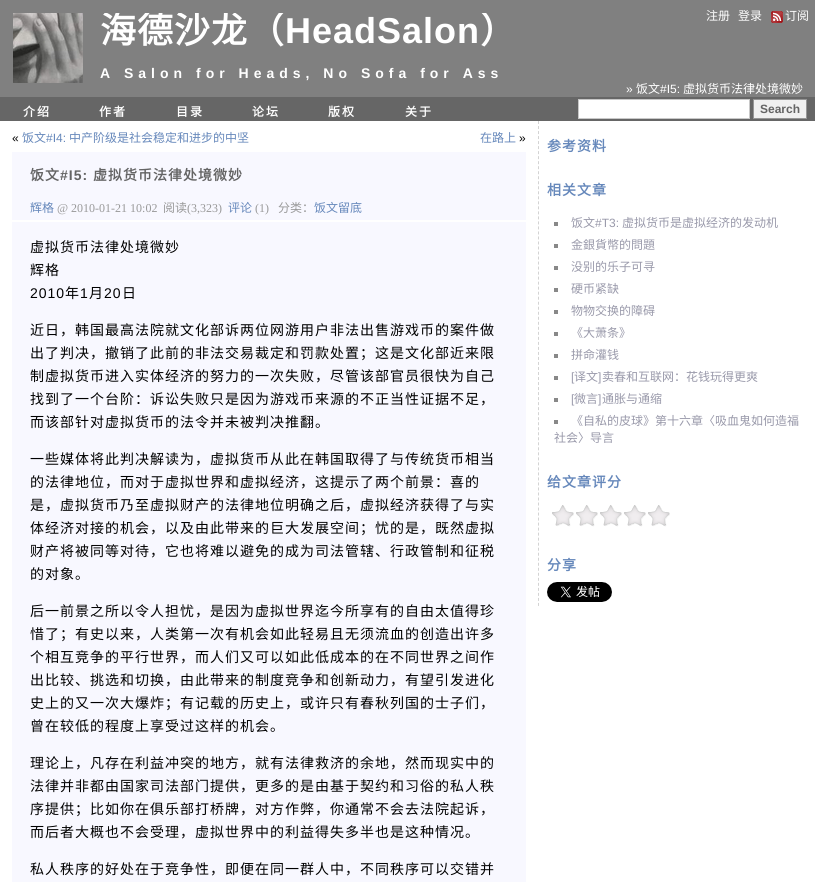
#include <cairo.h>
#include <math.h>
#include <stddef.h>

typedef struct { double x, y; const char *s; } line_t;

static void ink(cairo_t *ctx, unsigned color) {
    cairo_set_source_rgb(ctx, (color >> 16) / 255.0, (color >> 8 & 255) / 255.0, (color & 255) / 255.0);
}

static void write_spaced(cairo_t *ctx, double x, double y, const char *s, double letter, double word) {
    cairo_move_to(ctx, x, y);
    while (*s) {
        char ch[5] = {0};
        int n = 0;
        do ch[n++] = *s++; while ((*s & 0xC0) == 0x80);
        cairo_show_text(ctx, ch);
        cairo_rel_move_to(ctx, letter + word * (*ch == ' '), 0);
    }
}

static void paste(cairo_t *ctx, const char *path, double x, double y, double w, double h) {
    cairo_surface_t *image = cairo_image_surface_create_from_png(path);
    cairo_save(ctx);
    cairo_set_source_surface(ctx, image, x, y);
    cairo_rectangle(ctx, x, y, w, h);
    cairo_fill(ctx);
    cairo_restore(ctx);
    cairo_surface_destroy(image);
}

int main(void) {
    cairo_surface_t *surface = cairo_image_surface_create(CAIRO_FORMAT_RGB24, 815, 882);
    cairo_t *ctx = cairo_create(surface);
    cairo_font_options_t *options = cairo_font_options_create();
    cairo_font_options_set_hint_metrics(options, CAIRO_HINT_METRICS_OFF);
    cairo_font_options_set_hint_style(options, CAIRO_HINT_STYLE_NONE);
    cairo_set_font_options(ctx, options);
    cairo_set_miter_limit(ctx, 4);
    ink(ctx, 0xFFFFFF);
    cairo_paint(ctx);
    ink(ctx, 0x808080);
    cairo_rectangle(ctx, 0, 0, 815, 97);
    cairo_fill(ctx);
    paste(ctx, "media/1.png", 13, 13, 70, 70);
    cairo_save(ctx);
    cairo_rectangle(ctx, 100, 13, 430, 36);
    cairo_clip(ctx);
    cairo_select_font_face(ctx, "Noto Sans CJK SC", CAIRO_FONT_SLANT_NORMAL, CAIRO_FONT_WEIGHT_BOLD);
    cairo_set_font_size(ctx, 36);
    ink(ctx, 0xFFFFFF);
    write_spaced(ctx, 100, 43, "海德沙龙（", 1, 0);
    cairo_restore(ctx);
    cairo_select_font_face(ctx, "Liberation Sans", CAIRO_FONT_SLANT_NORMAL, CAIRO_FONT_WEIGHT_BOLD);
    cairo_set_font_size(ctx, 36);
    ink(ctx, 0xFFFFFF);
    write_spaced(ctx, 285, 43, "HeadSalon", 1, 0);
    cairo_save(ctx);
    cairo_rectangle(ctx, 100, 13, 430, 36);
    cairo_clip(ctx);
    cairo_select_font_face(ctx, "Noto Sans CJK SC", CAIRO_FONT_SLANT_NORMAL, CAIRO_FONT_WEIGHT_BOLD);
    write_spaced(ctx, 480, 43, "）", 1, 0);
    cairo_restore(ctx);
    cairo_set_font_size(ctx, 14);
    write_spaced(ctx, 100, 78, "A Salon for Heads, No Sofa for Ass", 5, 0);
    cairo_select_font_face(ctx, "Noto Sans CJK SC", CAIRO_FONT_SLANT_NORMAL, CAIRO_FONT_WEIGHT_NORMAL);
    cairo_set_font_size(ctx, 12);
    cairo_move_to(ctx, 706, 20);
    cairo_show_text(ctx, "注册");
    cairo_move_to(ctx, 738, 20);
    cairo_show_text(ctx, "登录");
    paste(ctx, "media/2.png", 771, 11, 12, 12);
    cairo_move_to(ctx, 785, 20);
    cairo_show_text(ctx, "订阅");
    cairo_select_font_face(ctx, "Liberation Sans", CAIRO_FONT_SLANT_NORMAL, CAIRO_FONT_WEIGHT_NORMAL);
    cairo_move_to(ctx, 626, 93);
    cairo_show_text(ctx, "»");
    cairo_select_font_face(ctx, "Noto Sans CJK SC", CAIRO_FONT_SLANT_NORMAL, CAIRO_FONT_WEIGHT_NORMAL);
    cairo_move_to(ctx, 636, 93);
    cairo_show_text(ctx, "饭文");
    cairo_select_font_face(ctx, "Liberation Sans", CAIRO_FONT_SLANT_NORMAL, CAIRO_FONT_WEIGHT_NORMAL);
    cairo_move_to(ctx, 660, 93);
    cairo_show_text(ctx, "#I5:");
    cairo_select_font_face(ctx, "Noto Sans CJK SC", CAIRO_FONT_SLANT_NORMAL, CAIRO_FONT_WEIGHT_NORMAL);
    cairo_move_to(ctx, 683, 93);
    cairo_show_text(ctx, "虚拟货币法律处境微妙");
    ink(ctx, 0x666666);
    cairo_rectangle(ctx, 0, 97, 815, 24);
    cairo_fill(ctx);
    cairo_select_font_face(ctx, "Noto Sans CJK SC", CAIRO_FONT_SLANT_NORMAL, CAIRO_FONT_WEIGHT_BOLD);
    ink(ctx, 0xFFFFFF);
    {
        static const line_t items[] = {
            {23, 116, "介绍"},
            {99, 116, "作者"},
            {176, 116, "目录"},
            {252, 116, "论坛"},
            {328, 116, "版权"},
            {405, 116, "关于"},
        };
        for (size_t i = 0; i < sizeof items / sizeof *items; i++) {
            write_spaced(ctx, items[i].x, items[i].y, items[i].s, 2, 0);
        }
    }
    cairo_rectangle(ctx, 578.5, 99.5, 171, 19);
    cairo_fill_preserve(ctx);
    ink(ctx, 0xC8C8C8);
    cairo_set_line_width(ctx, 1);
    cairo_stroke(ctx);
    ink(ctx, 0xF0F0F0);
    cairo_rectangle(ctx, 753.5, 99.5, 53, 19);
    cairo_fill_preserve(ctx);
    ink(ctx, 0x969696);
    cairo_stroke(ctx);
    cairo_select_font_face(ctx, "Liberation Sans", CAIRO_FONT_SLANT_NORMAL, CAIRO_FONT_WEIGHT_BOLD);
    ink(ctx, 0x646464);
    cairo_move_to(ctx, 760, 113);
    cairo_show_text(ctx, "Search");
    cairo_select_font_face(ctx, "Liberation Sans", CAIRO_FONT_SLANT_NORMAL, CAIRO_FONT_WEIGHT_NORMAL);
    ink(ctx, 0x000000);
    cairo_move_to(ctx, 12, 142);
    cairo_show_text(ctx, "«");
    cairo_select_font_face(ctx, "Noto Sans CJK SC", CAIRO_FONT_SLANT_NORMAL, CAIRO_FONT_WEIGHT_NORMAL);
    ink(ctx, 0x6688BB);
    cairo_move_to(ctx, 22, 142);
    cairo_show_text(ctx, "饭文");
    cairo_select_font_face(ctx, "Liberation Sans", CAIRO_FONT_SLANT_NORMAL, CAIRO_FONT_WEIGHT_NORMAL);
    cairo_move_to(ctx, 46, 142);
    cairo_show_text(ctx, "#I4:");
    cairo_select_font_face(ctx, "Noto Sans CJK SC", CAIRO_FONT_SLANT_NORMAL, CAIRO_FONT_WEIGHT_NORMAL);
    cairo_move_to(ctx, 69, 142);
    cairo_show_text(ctx, "中产阶级是社会稳定和进步的中坚");
    cairo_move_to(ctx, 480, 142);
    cairo_show_text(ctx, "在路上");
    cairo_select_font_face(ctx, "Liberation Sans", CAIRO_FONT_SLANT_NORMAL, CAIRO_FONT_WEIGHT_NORMAL);
    ink(ctx, 0x000000);
    cairo_move_to(ctx, 519, 142);
    cairo_show_text(ctx, "»");
    ink(ctx, 0xF8F8FF);
    cairo_rectangle(ctx, 12, 152, 514, 68);
    cairo_fill(ctx);
    cairo_select_font_face(ctx, "Noto Sans CJK SC", CAIRO_FONT_SLANT_NORMAL, CAIRO_FONT_WEIGHT_BOLD);
    cairo_set_font_size(ctx, 14);
    ink(ctx, 0x646464);
    write_spaced(ctx, 30, 180, "饭文", 1, 0);
    cairo_select_font_face(ctx, "Liberation Sans", CAIRO_FONT_SLANT_NORMAL, CAIRO_FONT_WEIGHT_BOLD);
    write_spaced(ctx, 60, 180, "#I5:", 1, 0);
    cairo_select_font_face(ctx, "Noto Sans CJK SC", CAIRO_FONT_SLANT_NORMAL, CAIRO_FONT_WEIGHT_BOLD);
    write_spaced(ctx, 93, 180, "虚拟货币法律处境微妙", 1, 0);
    cairo_select_font_face(ctx, "Noto Sans CJK SC", CAIRO_FONT_SLANT_NORMAL, CAIRO_FONT_WEIGHT_NORMAL);
    cairo_set_font_size(ctx, 12);
    ink(ctx, 0x6688BB);
    cairo_move_to(ctx, 30, 212);
    cairo_show_text(ctx, "辉格");
    cairo_select_font_face(ctx, "Liberation Serif", CAIRO_FONT_SLANT_NORMAL, CAIRO_FONT_WEIGHT_NORMAL);
    ink(ctx, 0x999999);
    cairo_move_to(ctx, 57, 212);
    cairo_show_text(ctx, "@ 2010-01-21 10:02");
    cairo_select_font_face(ctx, "Noto Sans CJK SC", CAIRO_FONT_SLANT_NORMAL, CAIRO_FONT_WEIGHT_NORMAL);
    cairo_move_to(ctx, 163, 212);
    cairo_show_text(ctx, "阅读");
    cairo_select_font_face(ctx, "Liberation Serif", CAIRO_FONT_SLANT_NORMAL, CAIRO_FONT_WEIGHT_NORMAL);
    cairo_move_to(ctx, 187, 212);
    cairo_show_text(ctx, "(3,323)");
    cairo_select_font_face(ctx, "Noto Sans CJK SC", CAIRO_FONT_SLANT_NORMAL, CAIRO_FONT_WEIGHT_NORMAL);
    ink(ctx, 0x6688BB);
    cairo_move_to(ctx, 228, 212);
    cairo_show_text(ctx, "评论");
    cairo_select_font_face(ctx, "Liberation Serif", CAIRO_FONT_SLANT_NORMAL, CAIRO_FONT_WEIGHT_NORMAL);
    ink(ctx, 0x999999);
    cairo_move_to(ctx, 255, 212);
    cairo_show_text(ctx, "(1)");
    cairo_select_font_face(ctx, "Noto Sans CJK SC", CAIRO_FONT_SLANT_NORMAL, CAIRO_FONT_WEIGHT_NORMAL);
    cairo_move_to(ctx, 278, 212);
    cairo_show_text(ctx, "分类：");
    ink(ctx, 0x6688BB);
    cairo_move_to(ctx, 314, 212);
    cairo_show_text(ctx, "饭文留底");
    ink(ctx, 0xF8F8FF);
    cairo_rectangle(ctx, 12, 222, 514, 660);
    cairo_fill(ctx);
    cairo_set_font_size(ctx, 14);
    ink(ctx, 0x000000);
    write_spaced(ctx, 30, 252, "虚拟货币法律处境微妙", 1, 0);
    write_spaced(ctx, 30, 275, "辉格", 1, 0);
    cairo_select_font_face(ctx, "Liberation Sans", CAIRO_FONT_SLANT_NORMAL, CAIRO_FONT_WEIGHT_NORMAL);
    write_spaced(ctx, 30, 298, "2010", 1, 0);
    cairo_select_font_face(ctx, "Noto Sans CJK SC", CAIRO_FONT_SLANT_NORMAL, CAIRO_FONT_WEIGHT_NORMAL);
    write_spaced(ctx, 65, 298, "年", 1, 0);
    cairo_select_font_face(ctx, "Liberation Sans", CAIRO_FONT_SLANT_NORMAL, CAIRO_FONT_WEIGHT_NORMAL);
    write_spaced(ctx, 80, 298, "1", 1, 0);
    cairo_select_font_face(ctx, "Noto Sans CJK SC", CAIRO_FONT_SLANT_NORMAL, CAIRO_FONT_WEIGHT_NORMAL);
    write_spaced(ctx, 89, 298, "月", 1, 0);
    cairo_select_font_face(ctx, "Liberation Sans", CAIRO_FONT_SLANT_NORMAL, CAIRO_FONT_WEIGHT_NORMAL);
    write_spaced(ctx, 104, 298, "20", 1, 0);
    cairo_select_font_face(ctx, "Noto Sans CJK SC", CAIRO_FONT_SLANT_NORMAL, CAIRO_FONT_WEIGHT_NORMAL);
    {
        static const line_t items[] = {
            {122, 298, "日"},
            {30, 335, "近日，韩国最高法院就文化部诉两位网游用户非法出售游戏币的案件做"},
            {30, 358, "出了判决，撤销了此前的非法交易裁定和罚款处置；这是文化部近来限"},
            {30, 381, "制虚拟货币进入实体经济的努力的一次失败，尽管该部官员很快为自己"},
            {30, 404, "找到了一个台阶：诉讼失败只是因为游戏币来源的不正当性证据不足，"},
            {30, 427, "而该部针对虚拟货币的法令并未被判决推翻。"},
            {30, 464, "一些媒体将此判决解读为，虚拟货币从此在韩国取得了与传统货币相当"},
            {30, 487, "的法律地位，而对于虚拟世界和虚拟经济，这提示了两个前景：喜的"},
            {30, 510, "是，虚拟货币乃至虚拟财产的法律地位明确之后，虚拟经济获得了与实"},
            {30, 533, "体经济对接的机会，以及由此带来的巨大发展空间；忧的是，既然虚拟"},
            {30, 556, "财产将被同等对待，它也将难以避免的成为司法管辖、行政管制和征税"},
            {30, 579, "的对象。"},
            {30, 616, "后一前景之所以令人担忧，是因为虚拟世界迄今所享有的自由太值得珍"},
            {30, 639, "惜了；有史以来，人类第一次有机会如此轻易且无须流血的创造出许多"},
            {30, 662, "个相互竞争的平行世界，而人们又可以如此低成本的在不同世界之间作"},
            {30, 685, "出比较、挑选和切换，由此带来的制度竞争和创新动力，有望引发进化"},
            {30, 708, "史上的又一次大爆炸；有记载的历史上，或许只有春秋列国的士子们，"},
            {30, 731, "曾在较低的程度上享受过这样的机会。"},
            {30, 768, "理论上，凡存在利益冲突的地方，就有法律救济的余地，然而现实中的"},
            {30, 791, "法律并非都由国家司法部门提供，更多的是由基于契约和习俗的私人秩"},
            {30, 814, "序提供；比如你在俱乐部打桥牌，对方作弊，你通常不会去法院起诉，"},
            {30, 837, "而后者大概也不会受理，虚拟世界中的利益得失多半也是这种情况。"},
            {30, 874, "私人秩序的好处在于竞争性，即便在同一群人中，不同秩序可以交错并"},
        };
        for (size_t i = 0; i < sizeof items / sizeof *items; i++) {
            write_spaced(ctx, items[i].x, items[i].y, items[i].s, 1, 0);
        }
    }
    cairo_new_path(ctx);
    cairo_move_to(ctx, 538.5, 121);
    cairo_line_to(ctx, 538.5, 606);
    ink(ctx, 0xD3D3D3);
    cairo_set_dash(ctx, (double[]){3, 2.02}, 2, 0);
    cairo_stroke(ctx);
    cairo_select_font_face(ctx, "Noto Sans CJK SC", CAIRO_FONT_SLANT_NORMAL, CAIRO_FONT_WEIGHT_BOLD);
    ink(ctx, 0x6688BB);
    write_spaced(ctx, 547, 151, "参考资料", 1, 0);
    write_spaced(ctx, 547, 195, "相关文章", 1, 0);
    ink(ctx, 0x888888);
    cairo_rectangle(ctx, 554, 222, 4, 4);
    cairo_fill(ctx);
    cairo_select_font_face(ctx, "Noto Sans CJK SC", CAIRO_FONT_SLANT_NORMAL, CAIRO_FONT_WEIGHT_NORMAL);
    cairo_set_font_size(ctx, 12);
    ink(ctx, 0x9999AA);
    cairo_move_to(ctx, 571, 227);
    cairo_show_text(ctx, "饭文");
    cairo_select_font_face(ctx, "Liberation Sans", CAIRO_FONT_SLANT_NORMAL, CAIRO_FONT_WEIGHT_NORMAL);
    cairo_move_to(ctx, 595, 227);
    cairo_show_text(ctx, "#T3:");
    cairo_select_font_face(ctx, "Noto Sans CJK SC", CAIRO_FONT_SLANT_NORMAL, CAIRO_FONT_WEIGHT_NORMAL);
    cairo_move_to(ctx, 622, 227);
    cairo_show_text(ctx, "虚拟货币是虚拟经济的发动机");
    ink(ctx, 0x888888);
    cairo_rectangle(ctx, 554, 244, 4, 4);
    cairo_fill(ctx);
    ink(ctx, 0x9999AA);
    cairo_move_to(ctx, 571, 249);
    cairo_show_text(ctx, "金銀貨幣的問題");
    ink(ctx, 0x888888);
    cairo_rectangle(ctx, 554, 266, 4, 4);
    cairo_fill(ctx);
    ink(ctx, 0x9999AA);
    cairo_move_to(ctx, 571, 271);
    cairo_show_text(ctx, "没别的乐子可寻");
    ink(ctx, 0x888888);
    cairo_rectangle(ctx, 554, 288, 4, 4);
    cairo_fill(ctx);
    ink(ctx, 0x9999AA);
    cairo_move_to(ctx, 571, 293);
    cairo_show_text(ctx, "硬币紧缺");
    ink(ctx, 0x888888);
    cairo_rectangle(ctx, 554, 310, 4, 4);
    cairo_fill(ctx);
    ink(ctx, 0x9999AA);
    cairo_move_to(ctx, 571, 315);
    cairo_show_text(ctx, "物物交换的障碍");
    ink(ctx, 0x888888);
    cairo_rectangle(ctx, 554, 332, 4, 4);
    cairo_fill(ctx);
    ink(ctx, 0x9999AA);
    cairo_move_to(ctx, 571, 337);
    cairo_show_text(ctx, "《大萧条》");
    ink(ctx, 0x888888);
    cairo_rectangle(ctx, 554, 354, 4, 4);
    cairo_fill(ctx);
    ink(ctx, 0x9999AA);
    cairo_move_to(ctx, 571, 359);
    cairo_show_text(ctx, "拼命灌钱");
    ink(ctx, 0x888888);
    cairo_rectangle(ctx, 554, 376, 4, 4);
    cairo_fill(ctx);
    cairo_select_font_face(ctx, "Liberation Sans", CAIRO_FONT_SLANT_NORMAL, CAIRO_FONT_WEIGHT_NORMAL);
    ink(ctx, 0x9999AA);
    cairo_move_to(ctx, 571, 381);
    cairo_show_text(ctx, "[");
    cairo_select_font_face(ctx, "Noto Sans CJK SC", CAIRO_FONT_SLANT_NORMAL, CAIRO_FONT_WEIGHT_NORMAL);
    cairo_move_to(ctx, 574, 381);
    cairo_show_text(ctx, "译文");
    cairo_select_font_face(ctx, "Liberation Sans", CAIRO_FONT_SLANT_NORMAL, CAIRO_FONT_WEIGHT_NORMAL);
    cairo_move_to(ctx, 598, 381);
    cairo_show_text(ctx, "]");
    cairo_select_font_face(ctx, "Noto Sans CJK SC", CAIRO_FONT_SLANT_NORMAL, CAIRO_FONT_WEIGHT_NORMAL);
    cairo_move_to(ctx, 602, 381);
    cairo_show_text(ctx, "卖春和互联网：花钱玩得更爽");
    ink(ctx, 0x888888);
    cairo_rectangle(ctx, 554, 398, 4, 4);
    cairo_fill(ctx);
    cairo_select_font_face(ctx, "Liberation Sans", CAIRO_FONT_SLANT_NORMAL, CAIRO_FONT_WEIGHT_NORMAL);
    ink(ctx, 0x9999AA);
    cairo_move_to(ctx, 571, 403);
    cairo_show_text(ctx, "[");
    cairo_select_font_face(ctx, "Noto Sans CJK SC", CAIRO_FONT_SLANT_NORMAL, CAIRO_FONT_WEIGHT_NORMAL);
    cairo_move_to(ctx, 574, 403);
    cairo_show_text(ctx, "微言");
    cairo_select_font_face(ctx, "Liberation Sans", CAIRO_FONT_SLANT_NORMAL, CAIRO_FONT_WEIGHT_NORMAL);
    cairo_move_to(ctx, 598, 403);
    cairo_show_text(ctx, "]");
    cairo_select_font_face(ctx, "Noto Sans CJK SC", CAIRO_FONT_SLANT_NORMAL, CAIRO_FONT_WEIGHT_NORMAL);
    cairo_move_to(ctx, 602, 403);
    cairo_show_text(ctx, "通胀与通缩");
    ink(ctx, 0x888888);
    cairo_rectangle(ctx, 554, 420, 4, 4);
    cairo_fill(ctx);
    ink(ctx, 0x9999AA);
    cairo_move_to(ctx, 571, 425);
    cairo_show_text(ctx, "《自私的皮球》第十六章〈吸血鬼如何造福");
    cairo_move_to(ctx, 554, 442);
    cairo_show_text(ctx, "社会〉导言");
    cairo_select_font_face(ctx, "Noto Sans CJK SC", CAIRO_FONT_SLANT_NORMAL, CAIRO_FONT_WEIGHT_BOLD);
    cairo_set_font_size(ctx, 14);
    ink(ctx, 0x6688BB);
    write_spaced(ctx, 547, 487, "给文章评分", 1, 0);
    paste(ctx, "media/3.png", 552, 505, 118, 22);
    write_spaced(ctx, 547, 570, "分享", 1, 0);
    paste(ctx, "media/4.png", 547, 582, 65, 20);
    cairo_surface_write_to_png(surface, "image.png");
    cairo_font_options_destroy(options);
    cairo_destroy(ctx);
    cairo_surface_destroy(surface);
    return 0;
}
